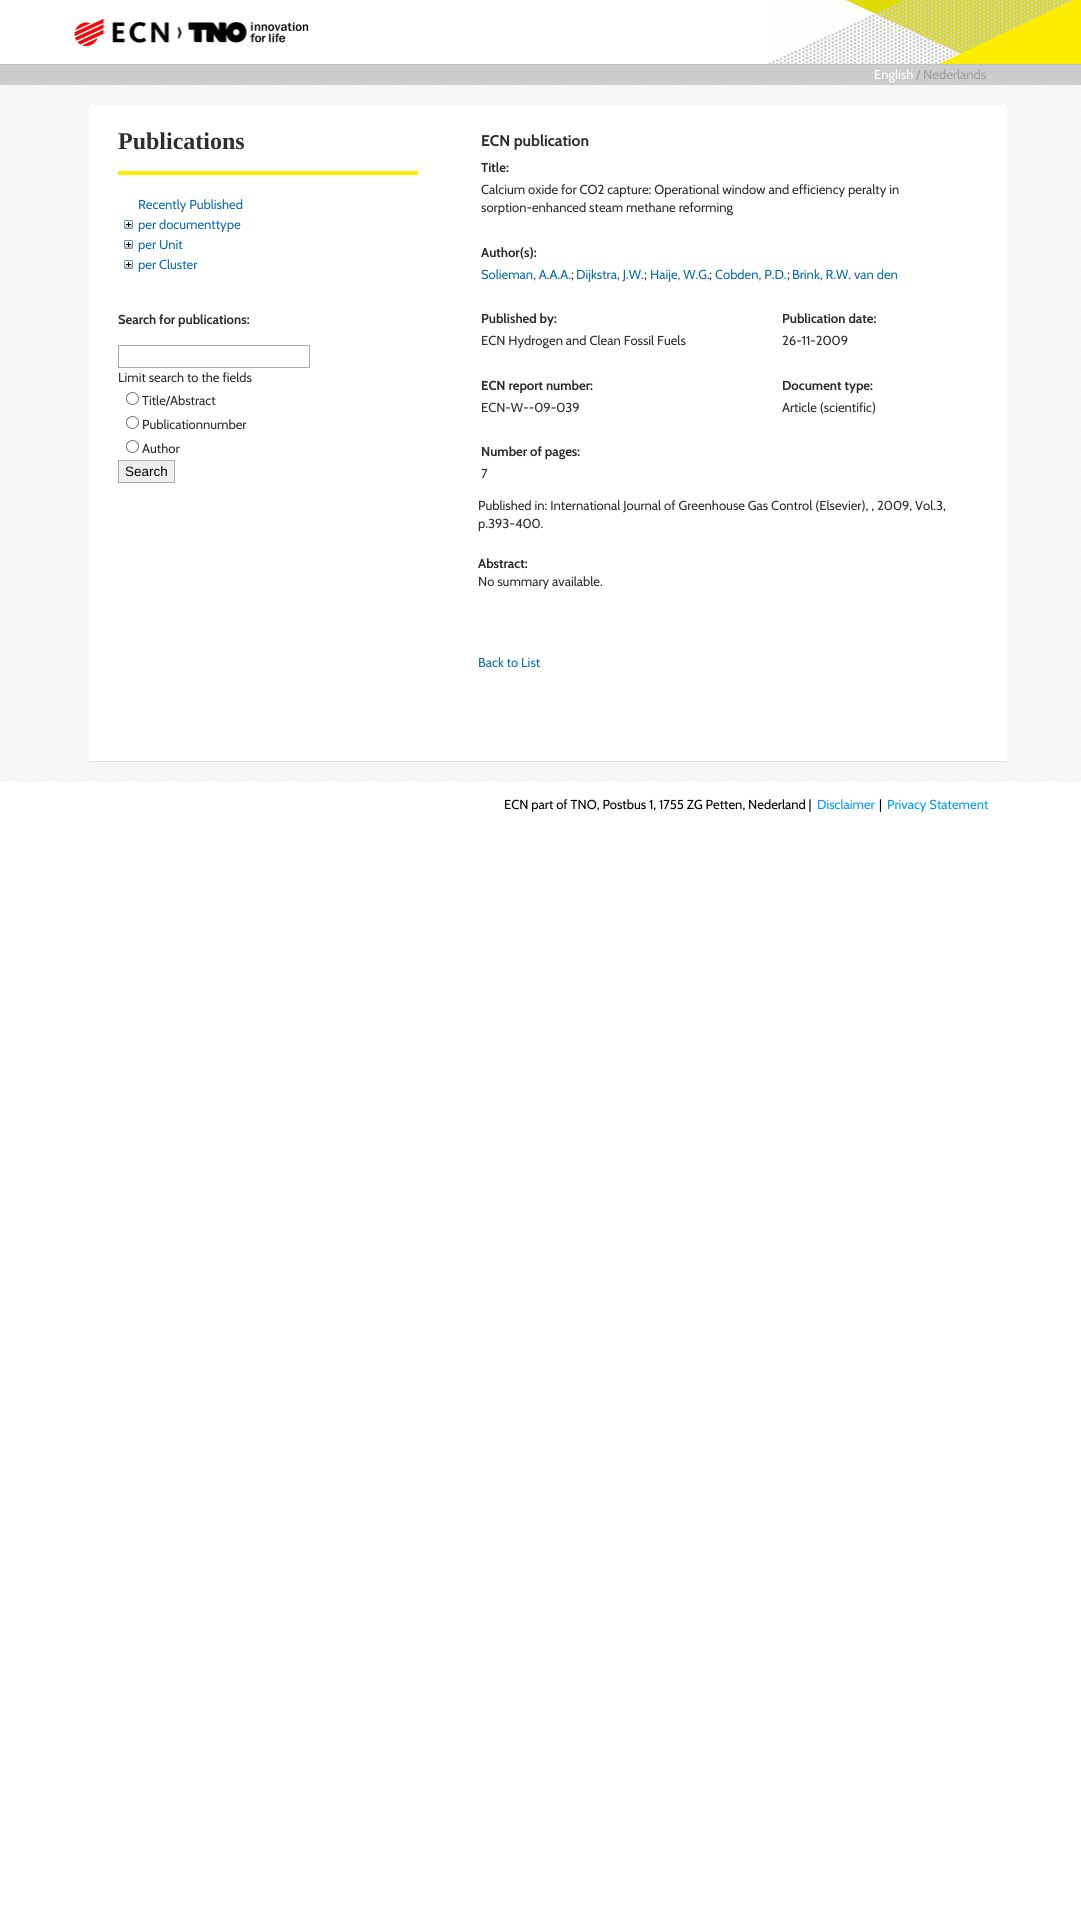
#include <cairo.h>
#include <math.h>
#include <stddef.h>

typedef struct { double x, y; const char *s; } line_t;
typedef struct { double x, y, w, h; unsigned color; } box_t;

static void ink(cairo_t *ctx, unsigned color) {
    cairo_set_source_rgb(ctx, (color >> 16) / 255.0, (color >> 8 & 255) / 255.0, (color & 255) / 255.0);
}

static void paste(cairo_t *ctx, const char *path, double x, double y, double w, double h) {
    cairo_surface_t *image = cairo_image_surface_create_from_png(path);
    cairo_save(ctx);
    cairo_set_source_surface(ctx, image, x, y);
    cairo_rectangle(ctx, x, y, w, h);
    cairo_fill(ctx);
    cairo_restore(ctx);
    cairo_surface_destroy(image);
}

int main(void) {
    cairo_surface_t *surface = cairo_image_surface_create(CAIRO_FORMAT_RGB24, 1081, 1910);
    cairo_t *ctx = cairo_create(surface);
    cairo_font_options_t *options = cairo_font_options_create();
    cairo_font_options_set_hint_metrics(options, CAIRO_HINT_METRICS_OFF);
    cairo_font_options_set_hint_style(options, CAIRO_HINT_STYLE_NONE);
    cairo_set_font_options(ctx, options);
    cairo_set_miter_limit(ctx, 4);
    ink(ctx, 0xFFFFFF);
    cairo_paint(ctx);
    ink(ctx, 0xCCCCCC);
    cairo_rectangle(ctx, 0, 65, 1081, 20);
    cairo_fill(ctx);
    ink(ctx, 0xC0C0C0);
    cairo_rectangle(ctx, 0, 64, 1081, 1);
    cairo_fill(ctx);
    paste(ctx, "media/1.png", 768, 0, 313, 64);
    paste(ctx, "media/2.png", 74, 18, 235, 29);
    cairo_select_font_face(ctx, "Cabin", CAIRO_FONT_SLANT_NORMAL, CAIRO_FONT_WEIGHT_NORMAL);
    cairo_set_font_size(ctx, 13);
    ink(ctx, 0xFFFFFF);
    cairo_move_to(ctx, 874, 79);
    cairo_show_text(ctx, "English");
    ink(ctx, 0x9C9C9C);
    cairo_move_to(ctx, 916, 79);
    cairo_show_text(ctx, "/ Nederlands");
    paste(ctx, "media/3.png", 0, 85, 1081, 697);
    {
        static const box_t items[] = {
            {89, 105, 918, 656, 0xFFFFFF},
            {89, 761, 918, 1, 0xDFDFDF},
            {118, 171, 300, 4, 0xFFEC00},
        };
        for (size_t i = 0; i < sizeof items / sizeof *items; i++) {
            ink(ctx, items[i].color);
            cairo_rectangle(ctx, items[i].x, items[i].y, items[i].w, items[i].h);
            cairo_fill(ctx);
        }
    }
    cairo_select_font_face(ctx, "Liberation Serif", CAIRO_FONT_SLANT_NORMAL, CAIRO_FONT_WEIGHT_BOLD);
    cairo_set_font_size(ctx, 24);
    ink(ctx, 0x2E2D2D);
    cairo_move_to(ctx, 118, 149);
    cairo_show_text(ctx, "Publications");
    cairo_select_font_face(ctx, "Cabin", CAIRO_FONT_SLANT_NORMAL, CAIRO_FONT_WEIGHT_NORMAL);
    cairo_set_font_size(ctx, 13);
    ink(ctx, 0x0F6CAC);
    cairo_move_to(ctx, 138, 209);
    cairo_show_text(ctx, "Recently Published");
    paste(ctx, "media/4.png", 124, 220, 9, 9);
    cairo_move_to(ctx, 138, 229);
    cairo_show_text(ctx, "per documenttype");
    paste(ctx, "media/4.png", 124, 240, 9, 9);
    cairo_move_to(ctx, 138, 249);
    cairo_show_text(ctx, "per Unit");
    paste(ctx, "media/4.png", 124, 260, 9, 9);
    cairo_move_to(ctx, 138, 269);
    cairo_show_text(ctx, "per Cluster");
    cairo_select_font_face(ctx, "Cabin", CAIRO_FONT_SLANT_NORMAL, CAIRO_FONT_WEIGHT_BOLD);
    ink(ctx, 0x2E2D2D);
    cairo_move_to(ctx, 118, 324);
    cairo_show_text(ctx, "Search for publications:");
    cairo_rectangle(ctx, 118.5, 345.5, 191, 22);
    ink(ctx, 0xAAAAAA);
    cairo_set_line_width(ctx, 1);
    cairo_stroke(ctx);
    cairo_select_font_face(ctx, "Cabin", CAIRO_FONT_SLANT_NORMAL, CAIRO_FONT_WEIGHT_NORMAL);
    ink(ctx, 0x2E2D2D);
    cairo_move_to(ctx, 118, 382);
    cairo_show_text(ctx, "Limit search to the fields");
    cairo_new_path(ctx);
    cairo_arc(ctx, 132.5, 398.5, 6, 0, 2 * M_PI);
    ink(ctx, 0x767676);
    cairo_stroke(ctx);
    ink(ctx, 0x2E2D2D);
    cairo_move_to(ctx, 142, 405);
    cairo_show_text(ctx, "Title/Abstract");
    cairo_new_path(ctx);
    cairo_arc(ctx, 132.5, 422.5, 6, 0, 2 * M_PI);
    ink(ctx, 0x767676);
    cairo_stroke(ctx);
    ink(ctx, 0x2E2D2D);
    cairo_move_to(ctx, 142, 429);
    cairo_show_text(ctx, "Publicationnumber");
    cairo_new_path(ctx);
    cairo_arc(ctx, 132.5, 446.5, 6, 0, 2 * M_PI);
    ink(ctx, 0x767676);
    cairo_stroke(ctx);
    ink(ctx, 0x2E2D2D);
    cairo_move_to(ctx, 142, 453);
    cairo_show_text(ctx, "Author");
    ink(ctx, 0xEFEFEF);
    cairo_rectangle(ctx, 118.5, 460.5, 56, 22);
    cairo_fill_preserve(ctx);
    ink(ctx, 0xAAAAAA);
    cairo_stroke(ctx);
    cairo_select_font_face(ctx, "Liberation Sans", CAIRO_FONT_SLANT_NORMAL, CAIRO_FONT_WEIGHT_NORMAL);
    cairo_set_font_size(ctx, 13.5);
    ink(ctx, 0x000000);
    cairo_move_to(ctx, 125, 476);
    cairo_show_text(ctx, "Search");
    cairo_select_font_face(ctx, "Cabin", CAIRO_FONT_SLANT_NORMAL, CAIRO_FONT_WEIGHT_BOLD);
    cairo_set_font_size(ctx, 15.5);
    ink(ctx, 0x2E2D2D);
    cairo_move_to(ctx, 481, 146);
    cairo_show_text(ctx, "ECN publication");
    cairo_set_font_size(ctx, 13);
    cairo_move_to(ctx, 481, 172);
    cairo_show_text(ctx, "Title:");
    cairo_select_font_face(ctx, "Cabin", CAIRO_FONT_SLANT_NORMAL, CAIRO_FONT_WEIGHT_NORMAL);
    cairo_move_to(ctx, 481, 194);
    cairo_show_text(ctx, "Calcium oxide for CO2 capture: Operational window and efficiency peralty in");
    cairo_move_to(ctx, 481, 212);
    cairo_show_text(ctx, "sorption-enhanced steam methane reforming");
    cairo_select_font_face(ctx, "Cabin", CAIRO_FONT_SLANT_NORMAL, CAIRO_FONT_WEIGHT_BOLD);
    cairo_move_to(ctx, 481, 257);
    cairo_show_text(ctx, "Author(s):");
    cairo_select_font_face(ctx, "Cabin", CAIRO_FONT_SLANT_NORMAL, CAIRO_FONT_WEIGHT_NORMAL);
    ink(ctx, 0x0F6CAC);
    cairo_move_to(ctx, 481, 279);
    cairo_show_text(ctx, "Solieman, A.A.A.");
    ink(ctx, 0x2E2D2D);
    cairo_move_to(ctx, 571, 279);
    cairo_show_text(ctx, ";");
    ink(ctx, 0x0F6CAC);
    cairo_move_to(ctx, 576, 279);
    cairo_show_text(ctx, "Dijkstra, J.W.");
    ink(ctx, 0x2E2D2D);
    cairo_move_to(ctx, 644, 279);
    cairo_show_text(ctx, ";");
    ink(ctx, 0x0F6CAC);
    cairo_move_to(ctx, 650, 279);
    cairo_show_text(ctx, "Haije, W.G.");
    ink(ctx, 0x2E2D2D);
    cairo_move_to(ctx, 709, 279);
    cairo_show_text(ctx, ";");
    ink(ctx, 0x0F6CAC);
    cairo_move_to(ctx, 715, 279);
    cairo_show_text(ctx, "Cobden, P.D.");
    ink(ctx, 0x2E2D2D);
    cairo_move_to(ctx, 787, 279);
    cairo_show_text(ctx, ";");
    ink(ctx, 0x0F6CAC);
    cairo_move_to(ctx, 792, 279);
    cairo_show_text(ctx, "Brink, R.W. van den");
    cairo_select_font_face(ctx, "Cabin", CAIRO_FONT_SLANT_NORMAL, CAIRO_FONT_WEIGHT_BOLD);
    ink(ctx, 0x2E2D2D);
    cairo_move_to(ctx, 481, 323);
    cairo_show_text(ctx, "Published by:");
    cairo_move_to(ctx, 782, 323);
    cairo_show_text(ctx, "Publication date:");
    cairo_select_font_face(ctx, "Cabin", CAIRO_FONT_SLANT_NORMAL, CAIRO_FONT_WEIGHT_NORMAL);
    cairo_move_to(ctx, 481, 345);
    cairo_show_text(ctx, "ECN Hydrogen and Clean Fossil Fuels");
    cairo_move_to(ctx, 782, 345);
    cairo_show_text(ctx, "26-11-2009");
    cairo_select_font_face(ctx, "Cabin", CAIRO_FONT_SLANT_NORMAL, CAIRO_FONT_WEIGHT_BOLD);
    cairo_move_to(ctx, 481, 390);
    cairo_show_text(ctx, "ECN report number:");
    cairo_move_to(ctx, 782, 390);
    cairo_show_text(ctx, "Document type:");
    cairo_select_font_face(ctx, "Cabin", CAIRO_FONT_SLANT_NORMAL, CAIRO_FONT_WEIGHT_NORMAL);
    cairo_move_to(ctx, 481, 412);
    cairo_show_text(ctx, "ECN-W--09-039");
    cairo_move_to(ctx, 782, 412);
    cairo_show_text(ctx, "Article (scientific)");
    cairo_select_font_face(ctx, "Cabin", CAIRO_FONT_SLANT_NORMAL, CAIRO_FONT_WEIGHT_BOLD);
    cairo_move_to(ctx, 481, 456);
    cairo_show_text(ctx, "Number of pages:");
    cairo_select_font_face(ctx, "Cabin", CAIRO_FONT_SLANT_NORMAL, CAIRO_FONT_WEIGHT_NORMAL);
    {
        static const line_t items[] = {
            {481, 478, "7"},
            {478, 510, "Published in: International Journal of Greenhouse Gas Control (Elsevier), , 2009, Vol.3,"},
            {478, 528, "p.393-400."},
        };
        for (size_t i = 0; i < sizeof items / sizeof *items; i++) {
            cairo_move_to(ctx, items[i].x, items[i].y);
            cairo_show_text(ctx, items[i].s);
        }
    }
    cairo_select_font_face(ctx, "Cabin", CAIRO_FONT_SLANT_NORMAL, CAIRO_FONT_WEIGHT_BOLD);
    cairo_move_to(ctx, 478, 568);
    cairo_show_text(ctx, "Abstract:");
    cairo_select_font_face(ctx, "Cabin", CAIRO_FONT_SLANT_NORMAL, CAIRO_FONT_WEIGHT_NORMAL);
    cairo_move_to(ctx, 478, 586);
    cairo_show_text(ctx, "No summary available.");
    ink(ctx, 0x0F6CAC);
    cairo_move_to(ctx, 478, 667);
    cairo_show_text(ctx, "Back to List");
    ink(ctx, 0x000000);
    cairo_move_to(ctx, 504, 809);
    cairo_show_text(ctx, "ECN part of TNO, Postbus 1, 1755 ZG Petten, Nederland |");
    ink(ctx, 0x0099FF);
    cairo_move_to(ctx, 817, 809);
    cairo_show_text(ctx, "Disclaimer");
    ink(ctx, 0x000000);
    cairo_move_to(ctx, 879, 809);
    cairo_show_text(ctx, "|");
    ink(ctx, 0x0099FF);
    cairo_move_to(ctx, 887, 809);
    cairo_show_text(ctx, "Privacy Statement");
    cairo_surface_write_to_png(surface, "image.png");
    cairo_font_options_destroy(options);
    cairo_destroy(ctx);
    cairo_surface_destroy(surface);
    return 0;
}
